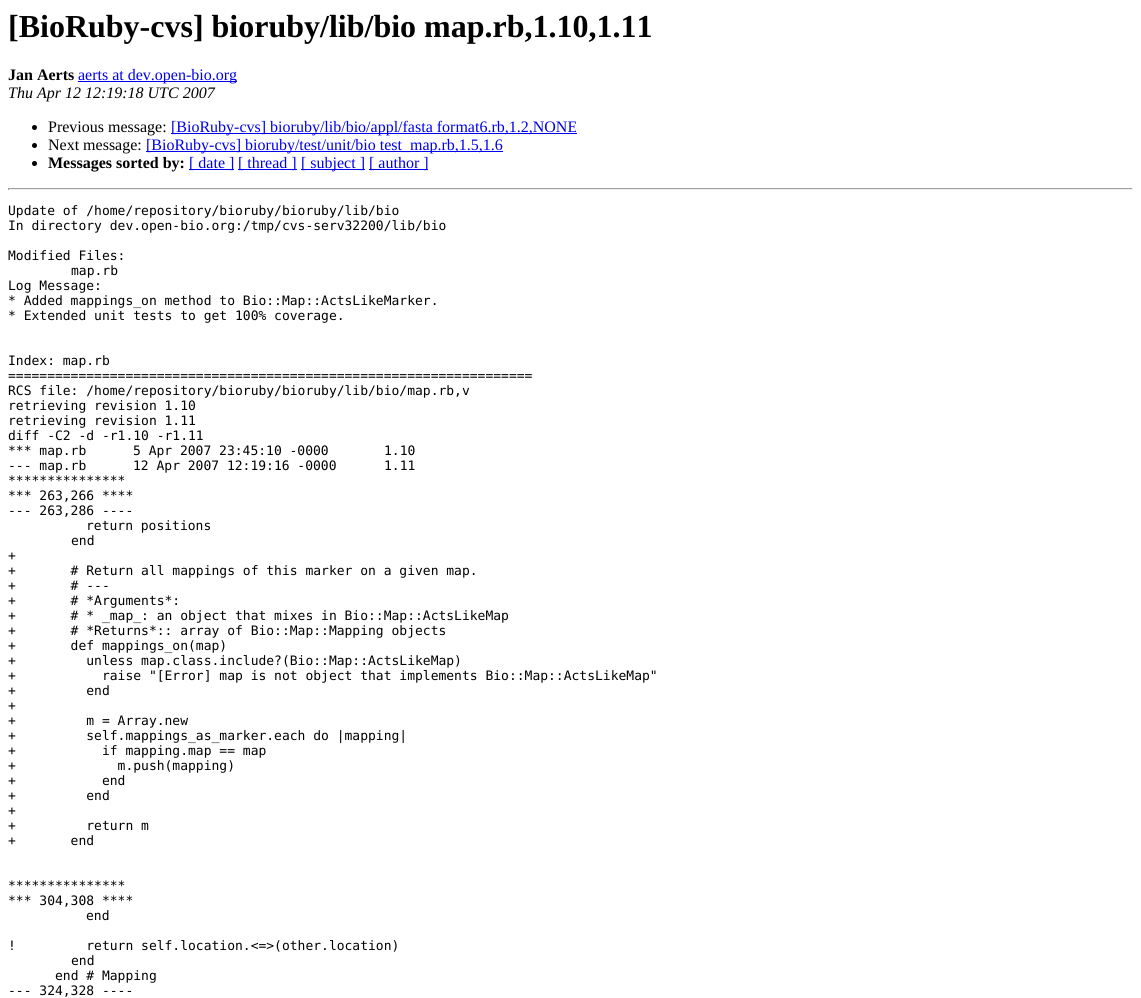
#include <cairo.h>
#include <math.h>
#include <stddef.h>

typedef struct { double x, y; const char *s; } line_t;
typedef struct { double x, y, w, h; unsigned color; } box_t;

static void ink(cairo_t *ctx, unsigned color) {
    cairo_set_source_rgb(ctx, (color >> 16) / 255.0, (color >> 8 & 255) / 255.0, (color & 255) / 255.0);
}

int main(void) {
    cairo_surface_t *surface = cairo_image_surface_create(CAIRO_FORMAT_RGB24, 1141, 998);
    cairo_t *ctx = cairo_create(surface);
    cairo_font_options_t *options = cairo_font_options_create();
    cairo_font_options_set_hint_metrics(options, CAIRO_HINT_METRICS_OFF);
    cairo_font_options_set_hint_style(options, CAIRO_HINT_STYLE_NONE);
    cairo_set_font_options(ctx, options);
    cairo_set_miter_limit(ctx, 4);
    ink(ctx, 0xFFFFFF);
    cairo_paint(ctx);
    cairo_select_font_face(ctx, "Liberation Serif", CAIRO_FONT_SLANT_NORMAL, CAIRO_FONT_WEIGHT_BOLD);
    cairo_set_font_size(ctx, 32);
    ink(ctx, 0x000000);
    cairo_move_to(ctx, 8, 37);
    cairo_show_text(ctx, "[BioRuby-cvs] bioruby/lib/bio map.rb,1.10,1.11");
    cairo_set_font_size(ctx, 16);
    cairo_move_to(ctx, 8, 80);
    cairo_show_text(ctx, "Jan Aerts");
    ink(ctx, 0x0000EE);
    cairo_rectangle(ctx, 78, 81, 159, 1);
    cairo_fill(ctx);
    cairo_select_font_face(ctx, "Liberation Serif", CAIRO_FONT_SLANT_NORMAL, CAIRO_FONT_WEIGHT_NORMAL);
    cairo_move_to(ctx, 78, 80);
    cairo_show_text(ctx, "aerts at dev.open-bio.org");
    cairo_select_font_face(ctx, "Liberation Serif", CAIRO_FONT_SLANT_ITALIC, CAIRO_FONT_WEIGHT_NORMAL);
    ink(ctx, 0x000000);
    cairo_move_to(ctx, 8, 98);
    cairo_show_text(ctx, "Thu Apr 12 12:19:18 UTC 2007");
    cairo_new_path(ctx);
    cairo_arc(ctx, 34.5, 127.5, 2.5, 0, 2 * M_PI);
    cairo_fill(ctx);
    cairo_select_font_face(ctx, "Liberation Serif", CAIRO_FONT_SLANT_NORMAL, CAIRO_FONT_WEIGHT_NORMAL);
    cairo_move_to(ctx, 48, 132);
    cairo_show_text(ctx, "Previous message:");
    ink(ctx, 0x0000EE);
    cairo_rectangle(ctx, 171, 133, 406, 1);
    cairo_fill(ctx);
    cairo_move_to(ctx, 171, 132);
    cairo_show_text(ctx, "[BioRuby-cvs] bioruby/lib/bio/appl/fasta format6.rb,1.2,NONE");
    ink(ctx, 0x000000);
    cairo_new_path(ctx);
    cairo_arc(ctx, 34.5, 145.5, 2.5, 0, 2 * M_PI);
    cairo_fill(ctx);
    cairo_move_to(ctx, 48, 150);
    cairo_show_text(ctx, "Next message:");
    ink(ctx, 0x0000EE);
    cairo_rectangle(ctx, 146, 151, 357, 1);
    cairo_fill(ctx);
    cairo_move_to(ctx, 146, 150);
    cairo_show_text(ctx, "[BioRuby-cvs] bioruby/test/unit/bio test_map.rb,1.5,1.6");
    ink(ctx, 0x000000);
    cairo_new_path(ctx);
    cairo_arc(ctx, 34.5, 163.5, 2.5, 0, 2 * M_PI);
    cairo_fill(ctx);
    cairo_select_font_face(ctx, "Liberation Serif", CAIRO_FONT_SLANT_NORMAL, CAIRO_FONT_WEIGHT_BOLD);
    cairo_move_to(ctx, 48, 168);
    cairo_show_text(ctx, "Messages sorted by:");
    ink(ctx, 0x0000EE);
    cairo_rectangle(ctx, 189, 169, 45, 1);
    cairo_fill(ctx);
    cairo_select_font_face(ctx, "Liberation Serif", CAIRO_FONT_SLANT_NORMAL, CAIRO_FONT_WEIGHT_NORMAL);
    cairo_move_to(ctx, 189, 168);
    cairo_show_text(ctx, "[ date ]");
    cairo_rectangle(ctx, 238, 169, 59, 1);
    cairo_fill(ctx);
    cairo_move_to(ctx, 238, 168);
    cairo_show_text(ctx, "[ thread ]");
    cairo_rectangle(ctx, 301, 169, 64, 1);
    cairo_fill(ctx);
    cairo_move_to(ctx, 301, 168);
    cairo_show_text(ctx, "[ subject ]");
    cairo_rectangle(ctx, 369, 169, 59, 1);
    cairo_fill(ctx);
    cairo_move_to(ctx, 369, 168);
    cairo_show_text(ctx, "[ author ]");
    {
        static const box_t items[] = {
            {8, 188, 1125, 1, 0x9F9F9F},
            {1132, 188, 1, 2, 0xEEEEEE},
            {8, 189, 1125, 1, 0xEEEEEE},
            {8, 188, 1, 2, 0x9F9F9F},
        };
        for (size_t i = 0; i < sizeof items / sizeof *items; i++) {
            ink(ctx, items[i].color);
            cairo_rectangle(ctx, items[i].x, items[i].y, items[i].w, items[i].h);
            cairo_fill(ctx);
        }
    }
    cairo_select_font_face(ctx, "DejaVu Sans Mono", CAIRO_FONT_SLANT_NORMAL, CAIRO_FONT_WEIGHT_NORMAL);
    cairo_set_font_size(ctx, 13);
    ink(ctx, 0x000000);
    {
        static const line_t items[] = {
            {8, 215, "Update of /home/repository/bioruby/bioruby/lib/bio"},
            {8, 230, "In directory dev.open-bio.org:/tmp/cvs-serv32200/lib/bio"},
            {8, 260, "Modified Files:"},
            {71, 275, "map.rb"},
            {8, 290, "Log Message:"},
            {8, 305, "* Added mappings_on method to Bio::Map::ActsLikeMarker."},
            {8, 320, "* Extended unit tests to get 100% coverage."},
            {8, 365, "Index: map.rb"},
            {8, 380, "==================================================================="},
            {8, 395, "RCS file: /home/repository/bioruby/bioruby/lib/bio/map.rb,v"},
            {8, 410, "retrieving revision 1.10"},
            {8, 425, "retrieving revision 1.11"},
            {8, 440, "diff -C2 -d -r1.10 -r1.11"},
            {8, 455, "*** map.rb"},
            {133, 455, "5 Apr 2007 23:45:10 -0000"},
            {384, 455, "1.10"},
            {8, 470, "--- map.rb"},
            {133, 470, "12 Apr 2007 12:19:16 -0000"},
            {384, 470, "1.11"},
            {8, 485, "***************"},
            {8, 500, "*** 263,266 ****"},
            {8, 515, "--- 263,286 ----"},
            {86, 530, "return positions"},
            {71, 545, "end"},
            {8, 560, "+"},
            {8, 575, "+       # Return all mappings of this marker on a given map."},
            {8, 590, "+       # ---"},
            {8, 605, "+       # *Arguments*:"},
            {8, 620, "+       # * _map_: an object that mixes in Bio::Map::ActsLikeMap"},
            {8, 635, "+       # *Returns*:: array of Bio::Map::Mapping objects"},
            {8, 650, "+       def mappings_on(map)"},
            {8, 665, "+         unless map.class.include?(Bio::Map::ActsLikeMap)"},
            {8, 680, "+           raise \"[Error] map is not object that implements Bio::Map::ActsLikeMap\""},
            {8, 695, "+         end"},
            {8, 710, "+"},
            {8, 725, "+         m = Array.new"},
            {8, 740, "+         self.mappings_as_marker.each do |mapping|"},
            {8, 755, "+           if mapping.map == map"},
            {8, 770, "+             m.push(mapping)"},
            {8, 785, "+           end"},
            {8, 800, "+         end"},
            {8, 815, "+"},
            {8, 830, "+         return m"},
            {8, 845, "+       end"},
            {8, 890, "***************"},
            {8, 905, "*** 304,308 ****"},
            {86, 920, "end"},
            {8, 950, "!         return self.location.<=>(other.location)"},
            {71, 965, "end"},
            {55, 980, "end # Mapping"},
            {8, 995, "--- 324,328 ----"},
        };
        for (size_t i = 0; i < sizeof items / sizeof *items; i++) {
            cairo_move_to(ctx, items[i].x, items[i].y);
            cairo_show_text(ctx, items[i].s);
        }
    }
    cairo_surface_write_to_png(surface, "image.png");
    cairo_font_options_destroy(options);
    cairo_destroy(ctx);
    cairo_surface_destroy(surface);
    return 0;
}
